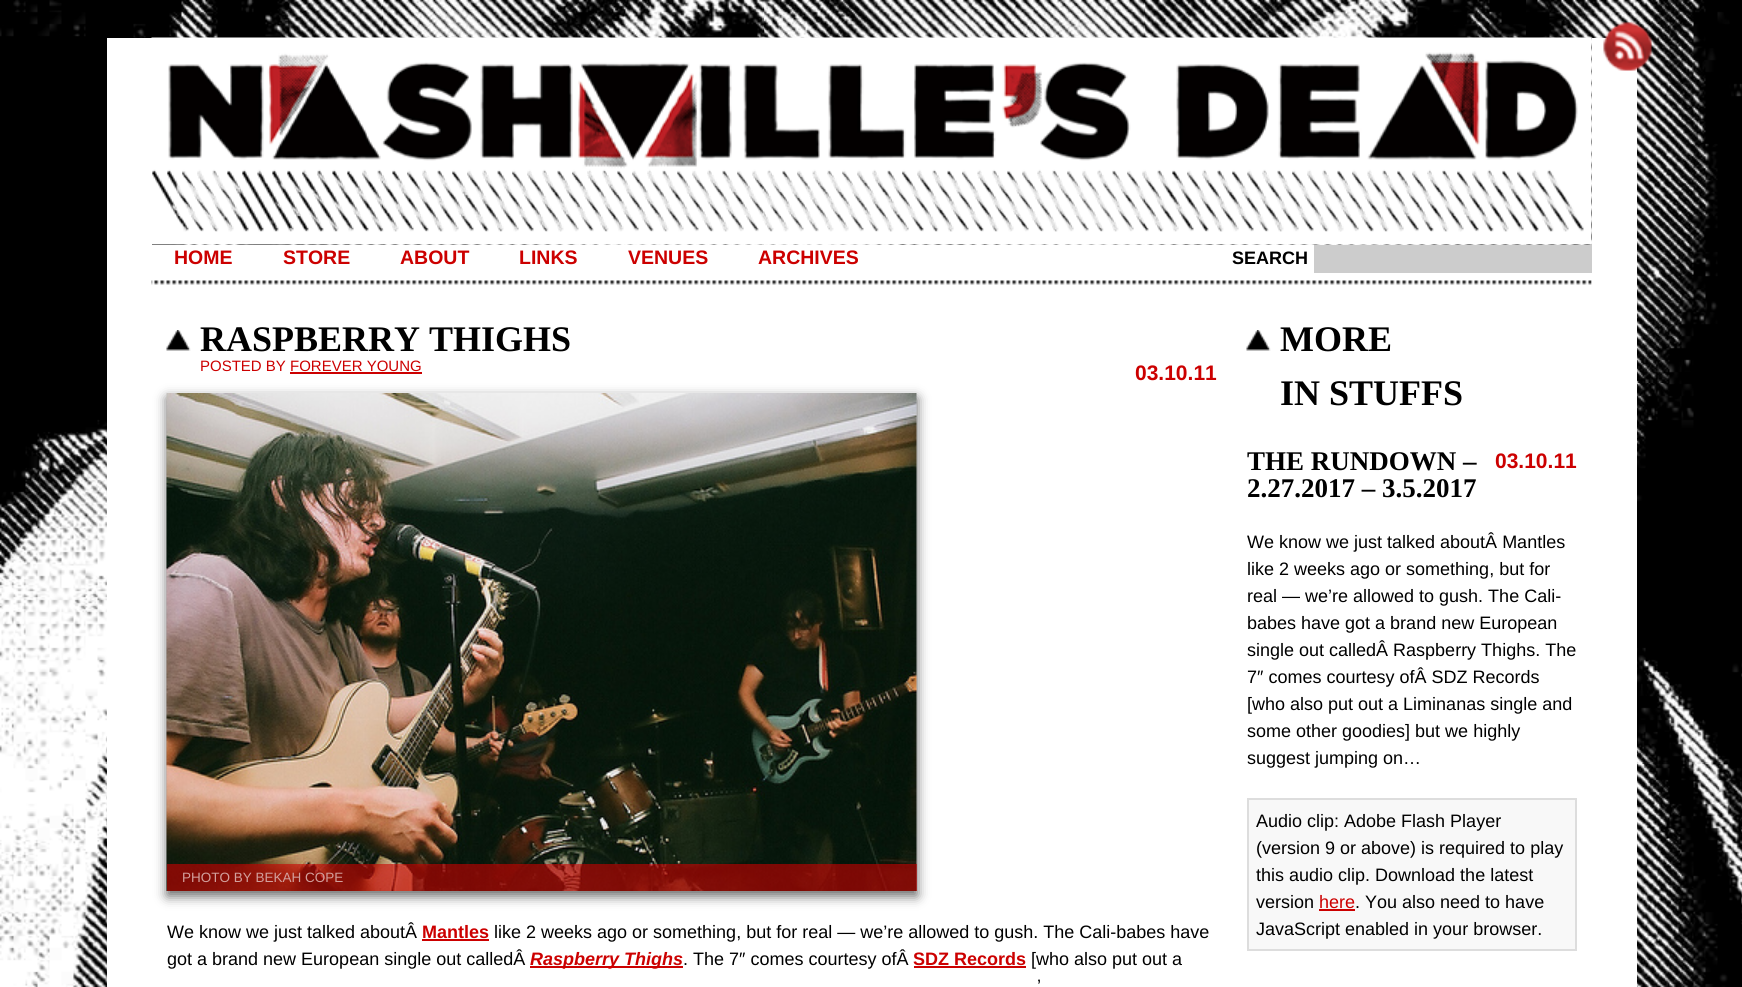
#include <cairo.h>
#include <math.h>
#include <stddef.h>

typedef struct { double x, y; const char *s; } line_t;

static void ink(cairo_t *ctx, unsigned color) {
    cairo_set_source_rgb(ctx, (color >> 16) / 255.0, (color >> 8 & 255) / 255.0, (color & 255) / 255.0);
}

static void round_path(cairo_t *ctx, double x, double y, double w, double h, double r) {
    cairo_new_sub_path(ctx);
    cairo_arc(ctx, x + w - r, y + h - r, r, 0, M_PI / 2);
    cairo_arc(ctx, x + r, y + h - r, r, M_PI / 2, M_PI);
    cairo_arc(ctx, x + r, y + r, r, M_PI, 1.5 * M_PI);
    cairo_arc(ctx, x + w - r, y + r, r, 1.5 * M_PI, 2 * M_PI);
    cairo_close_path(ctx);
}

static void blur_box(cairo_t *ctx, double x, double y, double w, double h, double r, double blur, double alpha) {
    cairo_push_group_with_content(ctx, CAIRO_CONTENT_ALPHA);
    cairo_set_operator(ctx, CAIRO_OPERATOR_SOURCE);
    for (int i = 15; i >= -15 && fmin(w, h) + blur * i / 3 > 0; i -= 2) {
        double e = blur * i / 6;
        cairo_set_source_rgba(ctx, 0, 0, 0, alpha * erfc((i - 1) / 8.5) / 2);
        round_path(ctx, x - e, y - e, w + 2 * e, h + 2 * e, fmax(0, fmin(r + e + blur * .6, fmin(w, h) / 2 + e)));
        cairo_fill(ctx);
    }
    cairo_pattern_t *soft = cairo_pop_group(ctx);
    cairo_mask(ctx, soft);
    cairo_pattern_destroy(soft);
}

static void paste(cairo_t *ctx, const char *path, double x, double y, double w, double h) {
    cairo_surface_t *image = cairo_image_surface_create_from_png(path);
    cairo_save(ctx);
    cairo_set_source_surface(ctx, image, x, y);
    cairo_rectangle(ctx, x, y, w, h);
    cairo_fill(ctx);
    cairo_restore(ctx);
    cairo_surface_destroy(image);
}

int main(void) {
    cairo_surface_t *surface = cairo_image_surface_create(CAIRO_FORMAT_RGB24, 1742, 987);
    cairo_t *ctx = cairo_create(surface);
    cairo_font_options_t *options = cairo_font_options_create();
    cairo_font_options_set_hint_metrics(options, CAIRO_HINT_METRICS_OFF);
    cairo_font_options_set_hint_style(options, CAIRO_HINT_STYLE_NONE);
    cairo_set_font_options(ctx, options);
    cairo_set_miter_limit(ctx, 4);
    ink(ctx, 0xFFFFFF);
    cairo_paint(ctx);
    paste(ctx, "media/1.png", 0, 0, 1742, 987);
    ink(ctx, 0xFFFFFF);
    cairo_rectangle(ctx, 1592, 38, 45, 274);
    cairo_fill(ctx);
    cairo_rectangle(ctx, 107, 38, 45, 274);
    cairo_fill(ctx);
    paste(ctx, "media/2.png", 151, 37, 1441, 208);
    paste(ctx, "media/3.png", 1603, 22, 49, 49);
    cairo_rectangle(ctx, 152, 245, 1440, 67);
    cairo_fill(ctx);
    paste(ctx, "media/4.png", 151, 280, 1441, 5);
    cairo_select_font_face(ctx, "Liberation Sans", CAIRO_FONT_SLANT_NORMAL, CAIRO_FONT_WEIGHT_BOLD);
    cairo_set_font_size(ctx, 19.5);
    ink(ctx, 0xCC0000);
    {
        static const line_t items[] = {
            {174, 264, "HOME"},
            {283, 264, "STORE"},
            {400, 264, "ABOUT"},
            {519, 264, "LINKS"},
            {628, 264, "VENUES"},
            {758, 264, "ARCHIVES"},
        };
        for (size_t i = 0; i < sizeof items / sizeof *items; i++) {
            cairo_move_to(ctx, items[i].x, items[i].y);
            cairo_show_text(ctx, items[i].s);
        }
    }
    cairo_set_font_size(ctx, 18);
    ink(ctx, 0x000000);
    cairo_move_to(ctx, 1232, 264);
    cairo_show_text(ctx, "SEARCH");
    ink(ctx, 0xCCCCCC);
    cairo_rectangle(ctx, 1314, 245, 278, 28);
    cairo_fill(ctx);
    ink(ctx, 0xFFFFFF);
    cairo_rectangle(ctx, 107, 312, 1530, 675);
    cairo_fill(ctx);
    paste(ctx, "media/5.png", 166, 330, 25, 21);
    cairo_select_font_face(ctx, "Liberation Serif", CAIRO_FONT_SLANT_NORMAL, CAIRO_FONT_WEIGHT_BOLD);
    cairo_set_font_size(ctx, 36);
    ink(ctx, 0x000000);
    cairo_move_to(ctx, 200, 351);
    cairo_show_text(ctx, "RASPBERRY THIGHS");
    cairo_select_font_face(ctx, "Liberation Sans", CAIRO_FONT_SLANT_NORMAL, CAIRO_FONT_WEIGHT_NORMAL);
    cairo_set_font_size(ctx, 15);
    ink(ctx, 0xCC0000);
    cairo_move_to(ctx, 200, 371);
    cairo_show_text(ctx, "POSTED BY FOREVER YOUNG");
    cairo_rectangle(ctx, 290, 372, 132, 2);
    cairo_fill(ctx);
    cairo_select_font_face(ctx, "Liberation Sans", CAIRO_FONT_SLANT_NORMAL, CAIRO_FONT_WEIGHT_BOLD);
    cairo_set_font_size(ctx, 21);
    cairo_move_to(ctx, 1135, 380);
    cairo_show_text(ctx, "03.10.11");
    ink(ctx, 0x666666);
    blur_box(ctx, 167, 398, 750, 498, 0, 6, 1);
    paste(ctx, "media/6.png", 166, 393, 751, 498);
    cairo_set_source_rgba(ctx, 0.8, 0, 0, 0.6);
    cairo_rectangle(ctx, 167, 864, 750, 27);
    cairo_fill(ctx);
    cairo_select_font_face(ctx, "Liberation Sans", CAIRO_FONT_SLANT_NORMAL, CAIRO_FONT_WEIGHT_NORMAL);
    cairo_set_font_size(ctx, 13.5);
    ink(ctx, 0xD2A09D);
    cairo_move_to(ctx, 182, 882);
    cairo_show_text(ctx, "PHOTO BY BEKAH COPE");
    cairo_set_font_size(ctx, 18);
    ink(ctx, 0x000000);
    cairo_move_to(ctx, 167, 938);
    cairo_show_text(ctx, "We know we just talked aboutÂ");
    cairo_select_font_face(ctx, "Liberation Sans", CAIRO_FONT_SLANT_NORMAL, CAIRO_FONT_WEIGHT_BOLD);
    ink(ctx, 0xCC0000);
    cairo_move_to(ctx, 422, 938);
    cairo_show_text(ctx, "Mantles");
    cairo_rectangle(ctx, 422, 939, 67, 2);
    cairo_fill(ctx);
    cairo_select_font_face(ctx, "Liberation Sans", CAIRO_FONT_SLANT_NORMAL, CAIRO_FONT_WEIGHT_NORMAL);
    ink(ctx, 0x000000);
    cairo_move_to(ctx, 494, 938);
    cairo_show_text(ctx, "like 2 weeks ago or something, but for real — we’re allowed to gush. The Cali-babes have");
    cairo_move_to(ctx, 167, 965);
    cairo_show_text(ctx, "got a brand new European single out calledÂ");
    ink(ctx, 0xCC0000);
    cairo_rectangle(ctx, 530, 966, 153, 2);
    cairo_fill(ctx);
    cairo_select_font_face(ctx, "Liberation Sans", CAIRO_FONT_SLANT_ITALIC, CAIRO_FONT_WEIGHT_BOLD);
    cairo_move_to(ctx, 530, 965);
    cairo_show_text(ctx, "Raspberry Thighs");
    cairo_select_font_face(ctx, "Liberation Sans", CAIRO_FONT_SLANT_NORMAL, CAIRO_FONT_WEIGHT_NORMAL);
    ink(ctx, 0x000000);
    cairo_move_to(ctx, 683, 965);
    cairo_show_text(ctx, ". The 7″ comes courtesy ofÂ");
    cairo_select_font_face(ctx, "Liberation Sans", CAIRO_FONT_SLANT_NORMAL, CAIRO_FONT_WEIGHT_BOLD);
    ink(ctx, 0xCC0000);
    cairo_move_to(ctx, 913, 965);
    cairo_show_text(ctx, "SDZ Records");
    cairo_rectangle(ctx, 914, 966, 112, 2);
    cairo_fill(ctx);
    cairo_select_font_face(ctx, "Liberation Sans", CAIRO_FONT_SLANT_NORMAL, CAIRO_FONT_WEIGHT_NORMAL);
    ink(ctx, 0x000000);
    cairo_move_to(ctx, 1031, 965);
    cairo_show_text(ctx, "[who also put out a");
    cairo_move_to(ctx, 1037, 992);
    cairo_show_text(ctx, "’");
    paste(ctx, "media/5.png", 1246, 330, 25, 21);
    cairo_select_font_face(ctx, "Liberation Serif", CAIRO_FONT_SLANT_NORMAL, CAIRO_FONT_WEIGHT_BOLD);
    cairo_set_font_size(ctx, 36);
    cairo_move_to(ctx, 1280, 351);
    cairo_show_text(ctx, "MORE");
    cairo_move_to(ctx, 1280, 405);
    cairo_show_text(ctx, "IN STUFFS");
    cairo_set_font_size(ctx, 27);
    cairo_move_to(ctx, 1247, 470);
    cairo_show_text(ctx, "THE RUNDOWN –");
    cairo_move_to(ctx, 1247, 497);
    cairo_show_text(ctx, "2.27.2017 – 3.5.2017");
    cairo_select_font_face(ctx, "Liberation Sans", CAIRO_FONT_SLANT_NORMAL, CAIRO_FONT_WEIGHT_BOLD);
    cairo_set_font_size(ctx, 21);
    ink(ctx, 0xCC0000);
    cairo_move_to(ctx, 1495, 468);
    cairo_show_text(ctx, "03.10.11");
    cairo_select_font_face(ctx, "Liberation Sans", CAIRO_FONT_SLANT_NORMAL, CAIRO_FONT_WEIGHT_NORMAL);
    cairo_set_font_size(ctx, 18);
    ink(ctx, 0x000000);
    {
        static const line_t items[] = {
            {1247, 548, "We know we just talked aboutÂ Mantles"},
            {1247, 575, "like 2 weeks ago or something, but for"},
            {1247, 602, "real — we’re allowed to gush. The Cali-"},
            {1247, 629, "babes have got a brand new European"},
            {1247, 656, "single out calledÂ Raspberry Thighs. The"},
            {1247, 683, "7″ comes courtesy ofÂ SDZ Records"},
            {1247, 710, "[who also put out a Liminanas single and"},
            {1247, 737, "some other goodies] but we highly"},
            {1247, 764, "suggest jumping on…"},
        };
        for (size_t i = 0; i < sizeof items / sizeof *items; i++) {
            cairo_move_to(ctx, items[i].x, items[i].y);
            cairo_show_text(ctx, items[i].s);
        }
    }
    ink(ctx, 0xF8F8F8);
    cairo_rectangle(ctx, 1248, 799, 328, 151);
    cairo_fill_preserve(ctx);
    ink(ctx, 0xDDDDDD);
    cairo_stroke(ctx);
    ink(ctx, 0x000000);
    {
        static const line_t items[] = {
            {1256, 827, "Audio clip: Adobe Flash Player"},
            {1256, 854, "(version 9 or above) is required to play"},
            {1256, 881, "this audio clip. Download the latest"},
            {1256, 908, "version"},
        };
        for (size_t i = 0; i < sizeof items / sizeof *items; i++) {
            cairo_move_to(ctx, items[i].x, items[i].y);
            cairo_show_text(ctx, items[i].s);
        }
    }
    ink(ctx, 0xCC0000);
    cairo_move_to(ctx, 1319, 908);
    cairo_show_text(ctx, "here");
    cairo_rectangle(ctx, 1319, 909, 36, 2);
    cairo_fill(ctx);
    ink(ctx, 0x000000);
    cairo_move_to(ctx, 1355, 908);
    cairo_show_text(ctx, ". You also need to have");
    cairo_move_to(ctx, 1256, 935);
    cairo_show_text(ctx, "JavaScript enabled in your browser.");
    cairo_surface_write_to_png(surface, "image.png");
    cairo_font_options_destroy(options);
    cairo_destroy(ctx);
    cairo_surface_destroy(surface);
    return 0;
}
